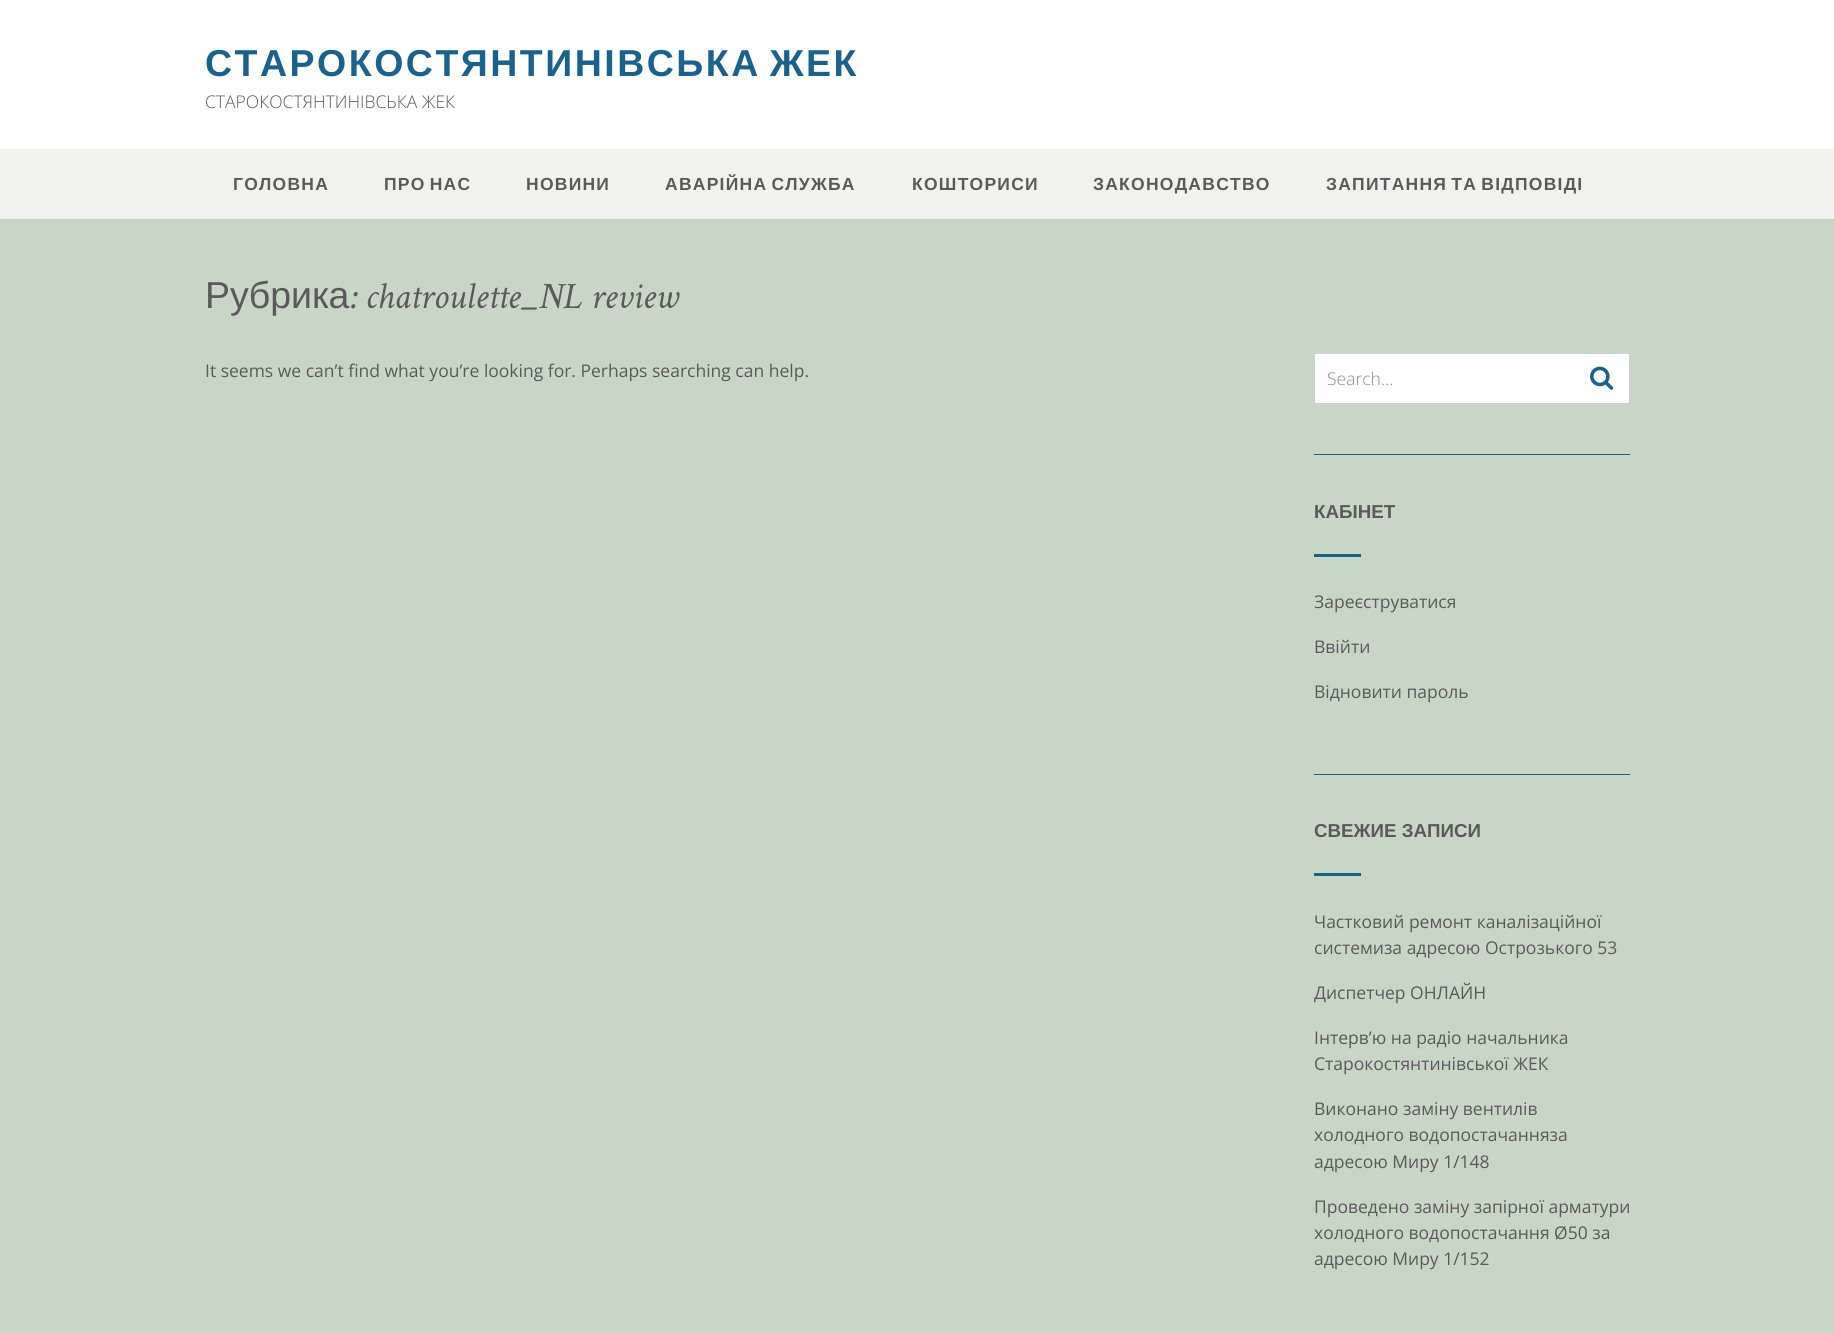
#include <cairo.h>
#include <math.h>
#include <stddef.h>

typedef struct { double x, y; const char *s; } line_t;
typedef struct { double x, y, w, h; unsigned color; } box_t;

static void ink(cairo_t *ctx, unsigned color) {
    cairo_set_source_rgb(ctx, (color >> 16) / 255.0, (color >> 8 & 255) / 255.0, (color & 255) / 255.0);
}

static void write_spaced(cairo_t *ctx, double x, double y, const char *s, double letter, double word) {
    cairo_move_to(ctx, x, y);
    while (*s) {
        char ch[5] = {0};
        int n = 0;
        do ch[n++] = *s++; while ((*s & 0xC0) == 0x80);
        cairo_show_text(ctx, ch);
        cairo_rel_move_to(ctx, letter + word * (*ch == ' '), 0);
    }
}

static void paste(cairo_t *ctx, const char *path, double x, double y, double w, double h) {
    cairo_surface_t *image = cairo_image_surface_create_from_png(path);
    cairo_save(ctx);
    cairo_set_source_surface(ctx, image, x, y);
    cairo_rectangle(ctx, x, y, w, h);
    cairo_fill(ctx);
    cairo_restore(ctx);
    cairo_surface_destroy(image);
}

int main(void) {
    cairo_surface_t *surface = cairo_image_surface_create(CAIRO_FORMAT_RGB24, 1834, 1333);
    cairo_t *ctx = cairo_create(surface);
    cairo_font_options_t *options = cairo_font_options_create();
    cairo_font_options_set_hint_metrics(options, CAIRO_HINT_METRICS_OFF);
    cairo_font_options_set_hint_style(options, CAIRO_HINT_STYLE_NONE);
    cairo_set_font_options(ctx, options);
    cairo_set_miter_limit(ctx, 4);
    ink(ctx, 0xC8D6C5);
    cairo_paint(ctx);
    ink(ctx, 0xFFFFFF);
    cairo_rectangle(ctx, 0, 0, 1834, 149);
    cairo_fill(ctx);
    cairo_select_font_face(ctx, "Liberation Sans", CAIRO_FONT_SLANT_NORMAL, CAIRO_FONT_WEIGHT_BOLD);
    cairo_set_font_size(ctx, 37.5);
    ink(ctx, 0x196290);
    write_spaced(ctx, 205, 76, "СТАРОКОСТЯНТИНІВСЬКА ЖЕК", 2.5, -4);
    cairo_select_font_face(ctx, "Open Sans Light", CAIRO_FONT_SLANT_NORMAL, CAIRO_FONT_WEIGHT_NORMAL);
    cairo_set_font_size(ctx, 17.5);
    ink(ctx, 0x5A5A5A);
    cairo_move_to(ctx, 205, 108);
    cairo_show_text(ctx, "СТАРОКОСТЯНТИНІВСЬКА ЖЕК");
    ink(ctx, 0xF1F1F0);
    cairo_rectangle(ctx, 0, 149, 1834, 70);
    cairo_fill(ctx);
    ink(ctx, 0xCACFD0);
    cairo_rectangle(ctx, 0, 219, 1834, 1);
    cairo_fill(ctx);
    cairo_select_font_face(ctx, "Liberation Sans", CAIRO_FONT_SLANT_NORMAL, CAIRO_FONT_WEIGHT_BOLD);
    ink(ctx, 0x5A5A5A);
    write_spaced(ctx, 233, 190, "ГОЛОВНА", 1.25, 0);
    write_spaced(ctx, 384, 190, "ПРО НАС", 1.25, -2);
    write_spaced(ctx, 526, 190, "НОВИНИ", 1.25, 0);
    write_spaced(ctx, 665, 190, "АВАРІЙНА СЛУЖБА", 1.25, -2);
    write_spaced(ctx, 912, 190, "КОШТОРИСИ", 1.25, 0);
    write_spaced(ctx, 1093, 190, "ЗАКОНОДАВСТВО", 1.25, 0);
    write_spaced(ctx, 1326, 190, "ЗАПИТАННЯ ТА ВІДПОВІДІ", 1.25, -2);
    cairo_select_font_face(ctx, "Liberation Sans", CAIRO_FONT_SLANT_NORMAL, CAIRO_FONT_WEIGHT_NORMAL);
    cairo_set_font_size(ctx, 37.5);
    cairo_move_to(ctx, 205, 308);
    cairo_show_text(ctx, "Рубрика");
    cairo_select_font_face(ctx, "Metal", CAIRO_FONT_SLANT_NORMAL, CAIRO_FONT_WEIGHT_NORMAL);
    cairo_move_to(ctx, 349, 308);
    cairo_show_text(ctx, ": chatroulette_NL review");
    cairo_select_font_face(ctx, "Open Sans", CAIRO_FONT_SLANT_NORMAL, CAIRO_FONT_WEIGHT_NORMAL);
    cairo_set_font_size(ctx, 17.5);
    cairo_move_to(ctx, 205, 377);
    cairo_show_text(ctx, "It seems we can’t find what you’re looking for. Perhaps searching can help.");
    {
        static const box_t items[] = {
            {1314, 454, 316, 1, 0x196290},
            {1315, 354, 314, 49, 0xFFFFFF},
            {1314, 353, 316, 1, 0xCACFD0},
            {1314, 403, 275, 1, 0xCACFD0},
            {1314, 353, 1, 51, 0xCACFD0},
        };
        for (size_t i = 0; i < sizeof items / sizeof *items; i++) {
            ink(ctx, items[i].color);
            cairo_rectangle(ctx, items[i].x, items[i].y, items[i].w, items[i].h);
            cairo_fill(ctx);
        }
    }
    cairo_select_font_face(ctx, "Open Sans Light", CAIRO_FONT_SLANT_NORMAL, CAIRO_FONT_WEIGHT_NORMAL);
    ink(ctx, 0x8A8A8C);
    cairo_move_to(ctx, 1327, 385);
    cairo_show_text(ctx, "Search...");
    ink(ctx, 0xCACFD0);
    cairo_rectangle(ctx, 1629, 353, 1, 51);
    cairo_fill(ctx);
    cairo_rectangle(ctx, 1589, 403, 41, 1);
    cairo_fill(ctx);
    paste(ctx, "media/1.png", 1590, 366, 24, 24);
    ink(ctx, 0x196290);
    cairo_rectangle(ctx, 1314, 774, 316, 1);
    cairo_fill(ctx);
    cairo_select_font_face(ctx, "Liberation Sans", CAIRO_FONT_SLANT_NORMAL, CAIRO_FONT_WEIGHT_BOLD);
    cairo_set_font_size(ctx, 18.75);
    ink(ctx, 0x5A5A5A);
    cairo_move_to(ctx, 1314, 518);
    cairo_show_text(ctx, "КАБІНЕТ");
    ink(ctx, 0x196290);
    cairo_rectangle(ctx, 1314, 554, 47, 3);
    cairo_fill(ctx);
    cairo_select_font_face(ctx, "Open Sans", CAIRO_FONT_SLANT_NORMAL, CAIRO_FONT_WEIGHT_NORMAL);
    cairo_set_font_size(ctx, 17.5);
    ink(ctx, 0x5A5A5A);
    {
        static const line_t items[] = {
            {1314, 608, "Зареєструватися"},
            {1314, 653, "Ввійти"},
            {1314, 698, "Відновити пароль"},
        };
        for (size_t i = 0; i < sizeof items / sizeof *items; i++) {
            cairo_move_to(ctx, items[i].x, items[i].y);
            cairo_show_text(ctx, items[i].s);
        }
    }
    cairo_select_font_face(ctx, "Liberation Sans", CAIRO_FONT_SLANT_NORMAL, CAIRO_FONT_WEIGHT_BOLD);
    cairo_set_font_size(ctx, 18.75);
    cairo_move_to(ctx, 1314, 837);
    cairo_show_text(ctx, "СВЕЖИЕ ЗАПИСИ");
    ink(ctx, 0x196290);
    cairo_rectangle(ctx, 1314, 873, 47, 3);
    cairo_fill(ctx);
    cairo_select_font_face(ctx, "Open Sans", CAIRO_FONT_SLANT_NORMAL, CAIRO_FONT_WEIGHT_NORMAL);
    cairo_set_font_size(ctx, 17.5);
    ink(ctx, 0x5A5A5A);
    {
        static const line_t items[] = {
            {1314, 928, "Частковий ремонт каналізаційної"},
            {1314, 954, "системиза адресою Острозького 53"},
            {1314, 999, "Диспетчер ОНЛАЙН"},
            {1314, 1044, "Інтерв’ю на радіо начальника"},
            {1314, 1070, "Старокостянтинівської ЖЕК"},
            {1314, 1115, "Виконано заміну вентилів"},
            {1314, 1141, "холодного водопостачанняза"},
            {1314, 1168, "адресою Миру 1/148"},
            {1314, 1213, "Проведено заміну запірної арматури"},
            {1314, 1239, "холодного водопостачання Ø50 за"},
            {1314, 1265, "адресою Миру 1/152"},
        };
        for (size_t i = 0; i < sizeof items / sizeof *items; i++) {
            cairo_move_to(ctx, items[i].x, items[i].y);
            cairo_show_text(ctx, items[i].s);
        }
    }
    cairo_surface_write_to_png(surface, "image.png");
    cairo_font_options_destroy(options);
    cairo_destroy(ctx);
    cairo_surface_destroy(surface);
    return 0;
}
